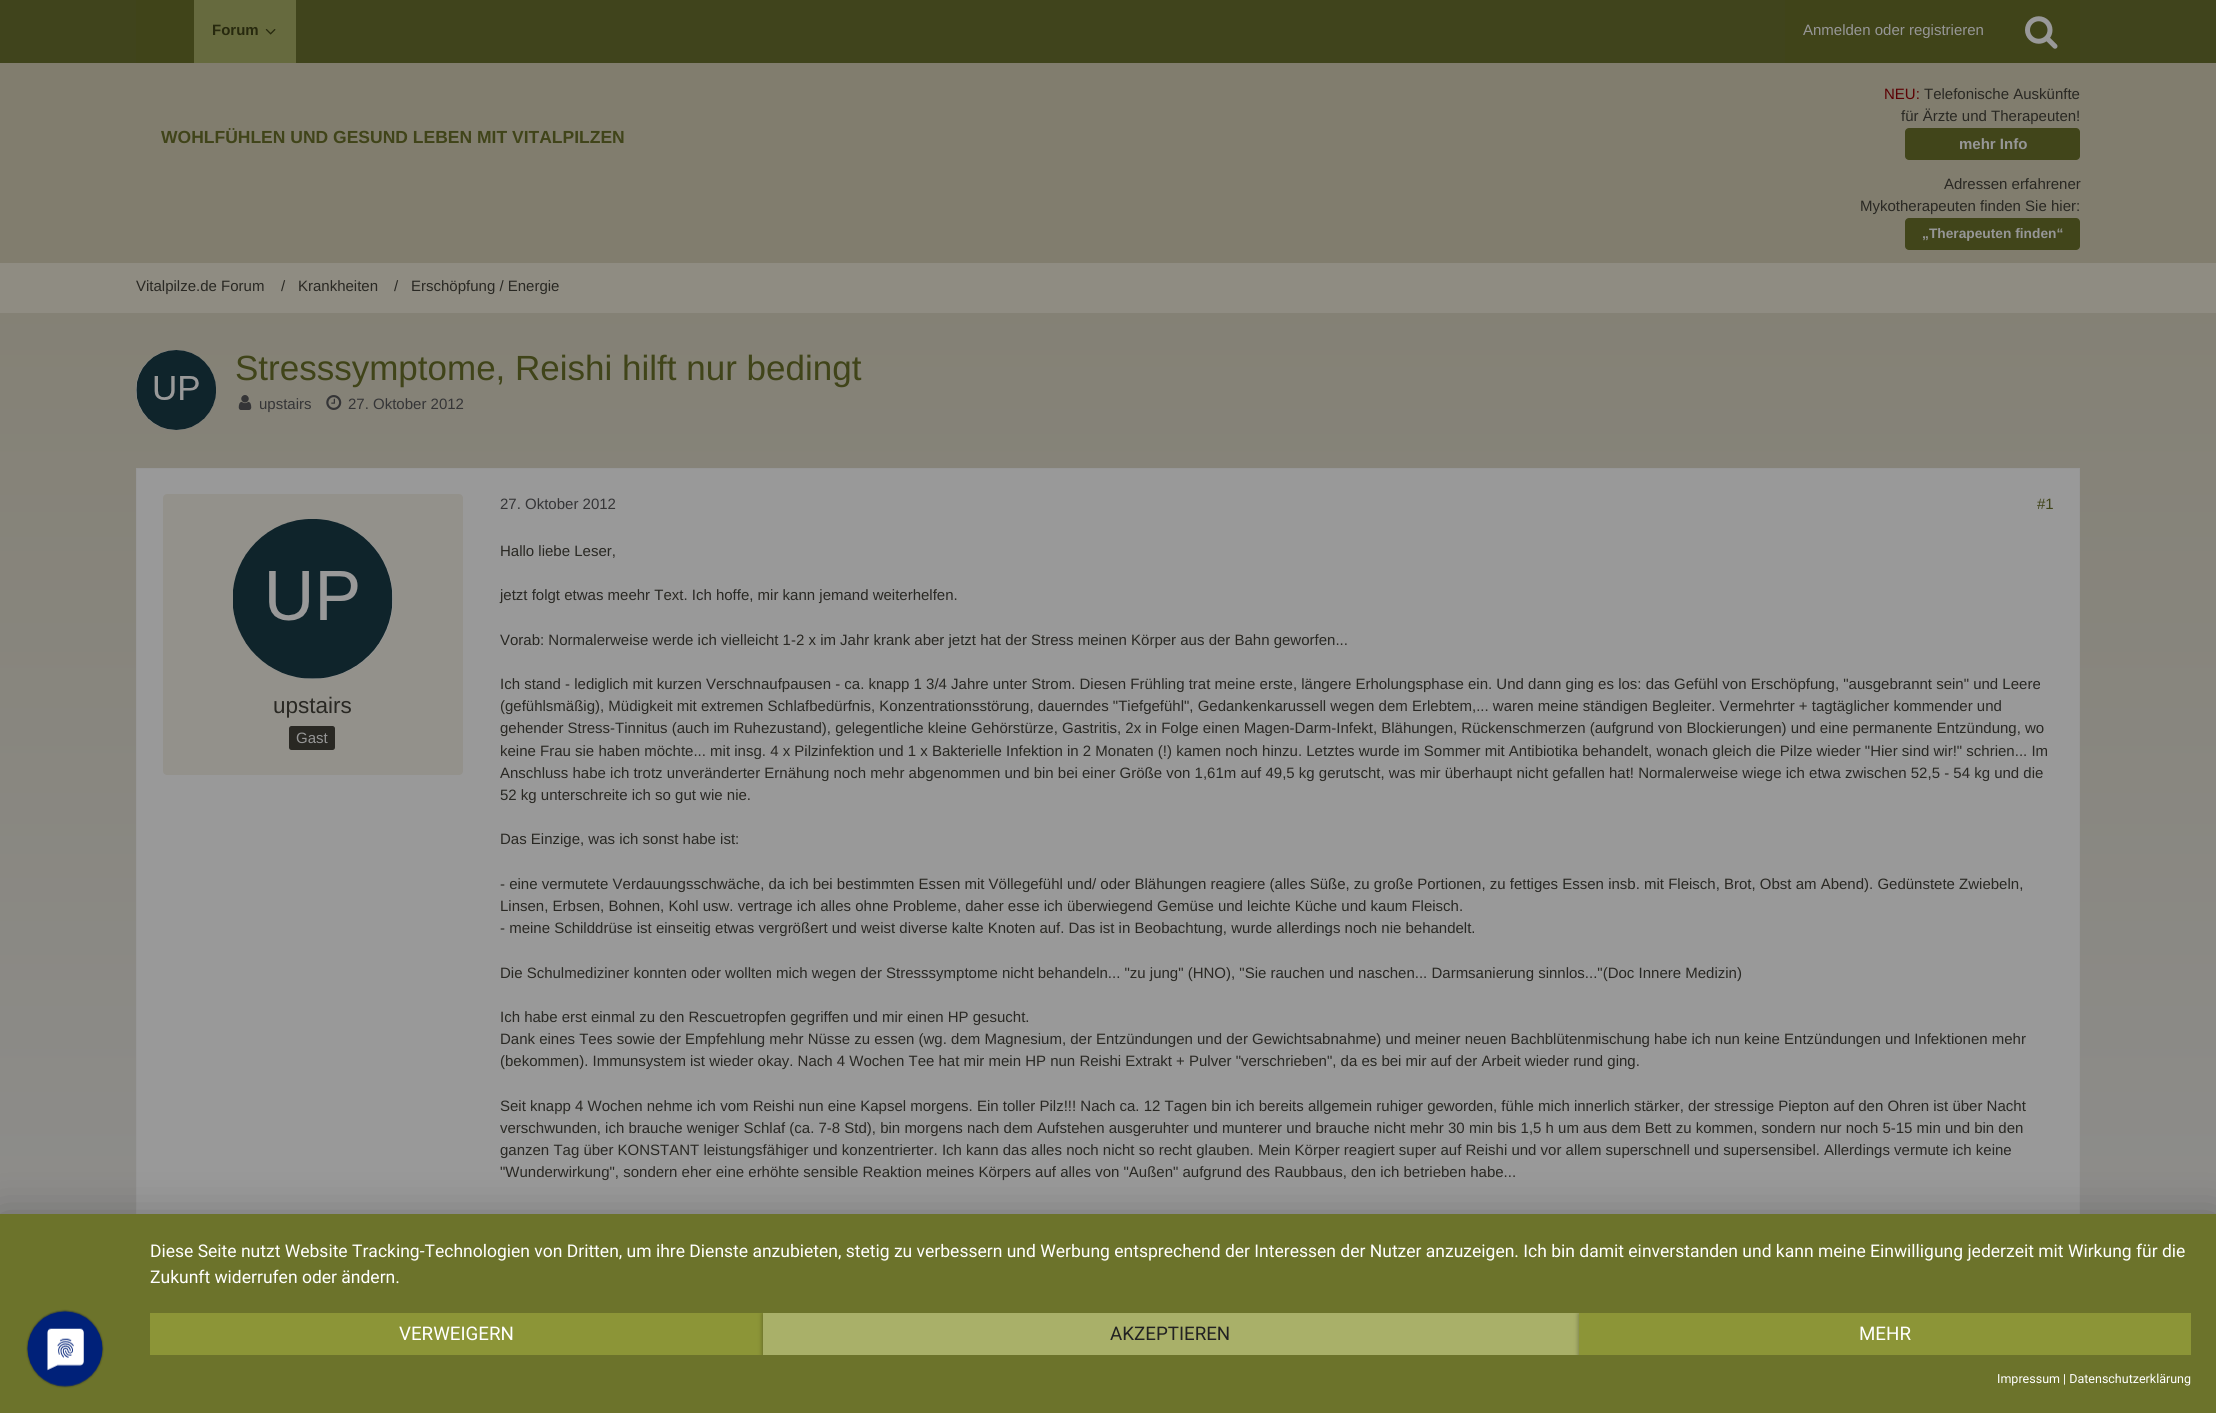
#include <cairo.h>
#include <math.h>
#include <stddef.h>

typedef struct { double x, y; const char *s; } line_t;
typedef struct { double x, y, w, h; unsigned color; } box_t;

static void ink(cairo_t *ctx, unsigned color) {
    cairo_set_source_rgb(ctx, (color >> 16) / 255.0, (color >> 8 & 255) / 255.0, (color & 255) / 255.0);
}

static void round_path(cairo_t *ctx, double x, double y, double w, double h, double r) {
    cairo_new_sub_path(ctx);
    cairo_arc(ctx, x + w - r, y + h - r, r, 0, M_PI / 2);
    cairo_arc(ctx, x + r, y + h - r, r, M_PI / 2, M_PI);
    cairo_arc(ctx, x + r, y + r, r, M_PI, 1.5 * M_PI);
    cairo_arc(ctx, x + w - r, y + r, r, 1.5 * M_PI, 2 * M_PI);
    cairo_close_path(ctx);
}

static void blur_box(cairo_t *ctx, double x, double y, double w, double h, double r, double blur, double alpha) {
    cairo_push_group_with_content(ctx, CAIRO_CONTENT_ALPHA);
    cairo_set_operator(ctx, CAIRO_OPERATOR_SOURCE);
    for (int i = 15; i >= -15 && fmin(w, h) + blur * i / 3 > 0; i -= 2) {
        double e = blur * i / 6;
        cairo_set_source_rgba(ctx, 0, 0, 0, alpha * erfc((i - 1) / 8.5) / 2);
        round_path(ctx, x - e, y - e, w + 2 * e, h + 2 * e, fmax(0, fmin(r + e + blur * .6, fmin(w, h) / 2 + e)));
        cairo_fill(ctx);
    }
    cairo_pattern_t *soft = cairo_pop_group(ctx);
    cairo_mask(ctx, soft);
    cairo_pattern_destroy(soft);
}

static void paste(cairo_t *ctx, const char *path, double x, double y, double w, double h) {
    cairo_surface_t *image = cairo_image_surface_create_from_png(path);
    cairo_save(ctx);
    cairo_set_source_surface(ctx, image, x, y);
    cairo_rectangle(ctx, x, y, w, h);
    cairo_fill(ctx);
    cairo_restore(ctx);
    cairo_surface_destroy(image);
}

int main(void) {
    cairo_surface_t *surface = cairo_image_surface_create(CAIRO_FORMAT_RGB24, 2216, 1413);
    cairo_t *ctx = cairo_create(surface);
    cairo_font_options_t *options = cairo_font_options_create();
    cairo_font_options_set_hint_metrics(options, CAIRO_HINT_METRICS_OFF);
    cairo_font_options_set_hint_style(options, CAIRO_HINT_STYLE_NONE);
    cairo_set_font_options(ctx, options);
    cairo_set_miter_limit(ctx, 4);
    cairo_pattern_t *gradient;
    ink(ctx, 0xFFFFFF);
    cairo_paint(ctx);
    gradient = cairo_pattern_create_linear(1108, 0, 1108, 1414);
    cairo_pattern_add_color_stop_rgba(gradient, 0, 0.506, 0.49, 0.431, 1);
    cairo_pattern_add_color_stop_rgba(gradient, 1, 0.561, 0.561, 0.561, 1);
    cairo_set_source(ctx, gradient);
    cairo_pattern_destroy(gradient);
    cairo_rectangle(ctx, 0, 313, 2216, 901);
    cairo_fill(ctx);
    {
        static const box_t items[] = {
            {0, 63, 2216, 200, 0x817D6E},
            {0, 0, 2216, 63, 0x40441C},
            {136, 0, 58, 63, 0x404419},
            {194, 0, 102, 63, 0x666A3E},
        };
        for (size_t i = 0; i < sizeof items / sizeof *items; i++) {
            ink(ctx, items[i].color);
            cairo_rectangle(ctx, items[i].x, items[i].y, items[i].w, items[i].h);
            cairo_fill(ctx);
        }
    }
    cairo_select_font_face(ctx, "Liberation Sans", CAIRO_FONT_SLANT_NORMAL, CAIRO_FONT_WEIGHT_BOLD);
    cairo_set_font_size(ctx, 15);
    ink(ctx, 0x27290E);
    cairo_move_to(ctx, 212, 35);
    cairo_show_text(ctx, "Forum");
    paste(ctx, "media/1.png", 265, 29, 11, 6);
    ink(ctx, 0x404419);
    cairo_rectangle(ctx, 1785, 0, 295, 63);
    cairo_fill(ctx);
    cairo_select_font_face(ctx, "Liberation Sans", CAIRO_FONT_SLANT_NORMAL, CAIRO_FONT_WEIGHT_NORMAL);
    ink(ctx, 0x969696);
    cairo_move_to(ctx, 1803, 35);
    cairo_show_text(ctx, "Anmelden oder registrieren");
    paste(ctx, "media/2.png", 2025, 16, 33, 33);
    cairo_select_font_face(ctx, "Liberation Sans", CAIRO_FONT_SLANT_NORMAL, CAIRO_FONT_WEIGHT_BOLD);
    cairo_set_font_size(ctx, 17.5);
    ink(ctx, 0x404419);
    cairo_move_to(ctx, 161, 143);
    cairo_show_text(ctx, "WOHLFÜHLEN UND GESUND LEBEN MIT VITALPILZEN");
    cairo_select_font_face(ctx, "Liberation Sans", CAIRO_FONT_SLANT_NORMAL, CAIRO_FONT_WEIGHT_NORMAL);
    cairo_set_font_size(ctx, 15);
    ink(ctx, 0x5B0003);
    cairo_move_to(ctx, 1884, 99);
    cairo_show_text(ctx, "NEU:");
    ink(ctx, 0x292823);
    cairo_move_to(ctx, 1924, 99);
    cairo_show_text(ctx, "Telefonische Auskünfte");
    cairo_move_to(ctx, 1901, 121);
    cairo_show_text(ctx, "für Ärzte und Therapeuten!");
    ink(ctx, 0x41451A);
    round_path(ctx, 1905, 128, 175, 32, 4);
    cairo_fill(ctx);
    cairo_select_font_face(ctx, "Liberation Sans", CAIRO_FONT_SLANT_NORMAL, CAIRO_FONT_WEIGHT_BOLD);
    ink(ctx, 0x969696);
    cairo_move_to(ctx, 1959, 149);
    cairo_show_text(ctx, "mehr Info");
    cairo_select_font_face(ctx, "Liberation Sans", CAIRO_FONT_SLANT_NORMAL, CAIRO_FONT_WEIGHT_NORMAL);
    ink(ctx, 0x292823);
    cairo_move_to(ctx, 1944, 189);
    cairo_show_text(ctx, "Adressen erfahrener");
    cairo_move_to(ctx, 1860, 211);
    cairo_show_text(ctx, "Mykotherapeuten finden Sie hier:");
    ink(ctx, 0x41451A);
    round_path(ctx, 1905, 218, 175, 32, 4);
    cairo_fill(ctx);
    cairo_select_font_face(ctx, "Liberation Sans", CAIRO_FONT_SLANT_NORMAL, CAIRO_FONT_WEIGHT_BOLD);
    cairo_set_font_size(ctx, 13.75);
    ink(ctx, 0x969696);
    cairo_move_to(ctx, 1922, 238);
    cairo_show_text(ctx, "„Therapeuten finden“");
    ink(ctx, 0x8F8C82);
    cairo_rectangle(ctx, 0, 263, 2216, 50);
    cairo_fill(ctx);
    cairo_select_font_face(ctx, "Liberation Sans", CAIRO_FONT_SLANT_NORMAL, CAIRO_FONT_WEIGHT_NORMAL);
    cairo_set_font_size(ctx, 15);
    ink(ctx, 0x292823);
    {
        static const line_t items[] = {
            {136, 291, "Vitalpilze.de Forum"},
            {281, 291, "/"},
            {298, 291, "Krankheiten"},
            {394, 291, "/"},
            {411, 291, "Erschöpfung / Energie"},
        };
        for (size_t i = 0; i < sizeof items / sizeof *items; i++) {
            cairo_move_to(ctx, items[i].x, items[i].y);
            cairo_show_text(ctx, items[i].s);
        }
    }
    ink(ctx, 0x999999);
    cairo_new_path(ctx);
    cairo_arc(ctx, 176, 390, 40, 0, 2 * M_PI);
    cairo_fill(ctx);
    paste(ctx, "media/3.png", 136, 350, 80, 80);
    cairo_set_font_size(ctx, 35);
    ink(ctx, 0x404419);
    cairo_move_to(ctx, 235, 380);
    cairo_show_text(ctx, "Stresssymptome, Reishi hilft nur bedingt");
    paste(ctx, "media/4.png", 238, 395, 14, 15);
    cairo_set_font_size(ctx, 15);
    ink(ctx, 0x353537);
    cairo_move_to(ctx, 259, 409);
    cairo_show_text(ctx, "upstairs");
    paste(ctx, "media/5.png", 326, 395, 16, 15);
    cairo_move_to(ctx, 348, 409);
    cairo_show_text(ctx, "27. Oktober 2012");
    ink(ctx, 0x999999);
    cairo_rectangle(ctx, 137, 469, 1942, 745);
    cairo_fill(ctx);
    cairo_rectangle(ctx, 136.5, 468.5, 1943, 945);
    ink(ctx, 0x969696);
    cairo_set_line_width(ctx, 1);
    cairo_stroke(ctx);
    ink(ctx, 0x93918B);
    round_path(ctx, 163, 494, 300, 281, 4);
    cairo_fill(ctx);
    ink(ctx, 0x999999);
    cairo_arc(ctx, 313, 599, 80, 0, 2 * M_PI);
    cairo_fill(ctx);
    paste(ctx, "media/6.png", 233, 519, 160, 160);
    cairo_set_font_size(ctx, 22.5);
    ink(ctx, 0x292823);
    cairo_move_to(ctx, 273, 713);
    cairo_show_text(ctx, "upstairs");
    round_path(ctx, 289, 726, 46, 24, 2.5);
    cairo_fill(ctx);
    cairo_set_font_size(ctx, 15);
    ink(ctx, 0x969696);
    cairo_move_to(ctx, 296, 743);
    cairo_show_text(ctx, "Gast");
    ink(ctx, 0x353537);
    cairo_move_to(ctx, 500, 509);
    cairo_show_text(ctx, "27. Oktober 2012");
    ink(ctx, 0x404419);
    cairo_move_to(ctx, 2037, 509);
    cairo_show_text(ctx, "#1");
    ink(ctx, 0x292823);
    {
        static const line_t items[] = {
            {500, 556, "Hallo liebe Leser,"},
            {500, 600, "jetzt folgt etwas meehr Text. Ich hoffe, mir kann jemand weiterhelfen."},
            {500, 645, "Vorab: Normalerweise werde ich vielleicht 1-2 x im Jahr krank aber jetzt hat der Stress meinen Körper aus der Bahn geworfen..."},
            {500, 689, "Ich stand - lediglich mit kurzen Verschnaufpausen - ca. knapp 1 3/4 Jahre unter Strom. Diesen Frühling trat meine erste, längere Erholungsphase ein. Und dann ging es los: das Gefühl von Erschöpfung, \"ausgebrannt sein\" und Leere"},
            {500, 711, "(gefühlsmäßig), Müdigkeit mit extremen Schlafbedürfnis, Konzentrationsstörung, dauerndes \"Tiefgefühl\", Gedankenkarussell wegen dem Erlebtem,... waren meine ständigen Begleiter. Vermehrter + tagtäglicher kommender und"},
            {500, 733, "gehender Stress-Tinnitus (auch im Ruhezustand), gelegentliche kleine Gehörstürze, Gastritis, 2x in Folge einen Magen-Darm-Infekt, Blähungen, Rückenschmerzen (aufgrund von Blockierungen) und eine permanente Entzündung, wo"},
            {500, 756, "keine Frau sie haben möchte... mit insg. 4 x Pilzinfektion und 1 x Bakterielle Infektion in 2 Monaten (!) kamen noch hinzu. Letztes wurde im Sommer mit Antibiotika behandelt, wonach gleich die Pilze wieder \"Hier sind wir!\" schrien... Im"},
            {500, 778, "Anschluss habe ich trotz unveränderter Ernähung noch mehr abgenommen und bin bei einer Größe von 1,61m auf 49,5 kg gerutscht, was mir überhaupt nicht gefallen hat! Normalerweise wiege ich etwa zwischen 52,5 - 54 kg und die"},
            {500, 800, "52 kg unterschreite ich so gut wie nie."},
            {500, 844, "Das Einzige, was ich sonst habe ist:"},
            {500, 889, "- eine vermutete Verdauungsschwäche, da ich bei bestimmten Essen mit Völlegefühl und/ oder Blähungen reagiere (alles Süße, zu große Portionen, zu fettiges Essen insb. mit Fleisch, Brot, Obst am Abend). Gedünstete Zwiebeln,"},
            {500, 911, "Linsen, Erbsen, Bohnen, Kohl usw. vertrage ich alles ohne Probleme, daher esse ich überwiegend Gemüse und leichte Küche und kaum Fleisch."},
            {500, 933, "- meine Schilddrüse ist einseitig etwas vergrößert und weist diverse kalte Knoten auf. Das ist in Beobachtung, wurde allerdings noch nie behandelt."},
            {500, 978, "Die Schulmediziner konnten oder wollten mich wegen der Stresssymptome nicht behandeln... \"zu jung\" (HNO), \"Sie rauchen und naschen... Darmsanierung sinnlos...\"(Doc Innere Medizin)"},
            {500, 1022, "Ich habe erst einmal zu den Rescuetropfen gegriffen und mir einen HP gesucht."},
            {500, 1044, "Dank eines Tees sowie der Empfehlung mehr Nüsse zu essen (wg. dem Magnesium, der Entzündungen und der Gewichtsabnahme) und meiner neuen Bachblütenmischung habe ich nun keine Entzündungen und Infektionen mehr"},
            {500, 1066, "(bekommen). Immunsystem ist wieder okay. Nach 4 Wochen Tee hat mir mein HP nun Reishi Extrakt + Pulver \"verschrieben\", da es bei mir auf der Arbeit wieder rund ging."},
            {500, 1111, "Seit knapp 4 Wochen nehme ich vom Reishi nun eine Kapsel morgens. Ein toller Pilz!!! Nach ca. 12 Tagen bin ich bereits allgemein ruhiger geworden, fühle mich innerlich stärker, der stressige Piepton auf den Ohren ist über Nacht"},
            {500, 1133, "verschwunden, ich brauche weniger Schlaf (ca. 7-8 Std), bin morgens nach dem Aufstehen ausgeruhter und munterer und brauche nicht mehr 30 min bis 1,5 h um aus dem Bett zu kommen, sondern nur noch 5-15 min und bin den"},
            {500, 1155, "ganzen Tag über KONSTANT leistungsfähiger und konzentrierter. Ich kann das alles noch nicht so recht glauben. Mein Körper reagiert super auf Reishi und vor allem superschnell und supersensibel. Allerdings vermute ich keine"},
            {500, 1177, "\"Wunderwirkung\", sondern eher eine erhöhte sensible Reaktion meines Körpers auf alles von \"Außen\" aufgrund des Raubbaus, den ich betrieben habe..."},
        };
        for (size_t i = 0; i < sizeof items / sizeof *items; i++) {
            cairo_move_to(ctx, items[i].x, items[i].y);
            cairo_show_text(ctx, items[i].s);
        }
    }
    ink(ctx, 0x000000);
    blur_box(ctx, 0, 1221, 2216, 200, 0, 22.5, 0.3);
    ink(ctx, 0x6C732B);
    cairo_rectangle(ctx, 0, 1214, 2216, 199);
    cairo_fill(ctx);
    paste(ctx, "media/7.png", 26, 1309, 78, 79);
    cairo_select_font_face(ctx, "Roboto", CAIRO_FONT_SLANT_NORMAL, CAIRO_FONT_WEIGHT_NORMAL);
    cairo_set_font_size(ctx, 17.5);
    ink(ctx, 0xFFFFFF);
    cairo_move_to(ctx, 150, 1257);
    cairo_show_text(ctx, "Diese Seite nutzt Website Tracking-Technologien von Dritten, um ihre Dienste anzubieten, stetig zu verbessern und Werbung entsprechend der Interessen der Nutzer anzuzeigen. Ich bin damit einverstanden und kann meine Einwilligung jederzeit mit Wirkung für die");
    cairo_move_to(ctx, 150, 1283);
    cairo_show_text(ctx, "Zukunft widerrufen oder ändern.");
    ink(ctx, 0x8C9537);
    cairo_rectangle(ctx, 150, 1313, 613, 42);
    cairo_fill(ctx);
    cairo_set_font_size(ctx, 18.75);
    ink(ctx, 0xFFFFFF);
    cairo_move_to(ctx, 399, 1340);
    cairo_show_text(ctx, "VERWEIGERN");
    cairo_save(ctx);
    cairo_rectangle(ctx, 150, 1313, 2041, 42);
    cairo_clip(ctx);
    ink(ctx, 0x000000);
    blur_box(ctx, 763, 1314, 816, 42, 0, 2.5, 0.4);
    cairo_restore(ctx);
    ink(ctx, 0xA9B069);
    cairo_rectangle(ctx, 763, 1313, 816, 42);
    cairo_fill(ctx);
    ink(ctx, 0x222222);
    cairo_move_to(ctx, 1110, 1340);
    cairo_show_text(ctx, "AKZEPTIEREN");
    cairo_save(ctx);
    cairo_rectangle(ctx, 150, 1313, 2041, 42);
    cairo_clip(ctx);
    ink(ctx, 0x000000);
    blur_box(ctx, 1579, 1314, 612, 42, 0, 2.5, 0.4);
    cairo_restore(ctx);
    ink(ctx, 0x8C9537);
    cairo_rectangle(ctx, 1579, 1313, 612, 42);
    cairo_fill(ctx);
    ink(ctx, 0xFFFFFF);
    cairo_move_to(ctx, 1859, 1340);
    cairo_show_text(ctx, "MEHR");
    cairo_set_font_size(ctx, 12.5);
    cairo_move_to(ctx, 1997, 1383);
    cairo_show_text(ctx, "Impressum | Datenschutzerklärung");
    cairo_surface_write_to_png(surface, "image.png");
    cairo_font_options_destroy(options);
    cairo_destroy(ctx);
    cairo_surface_destroy(surface);
    return 0;
}
